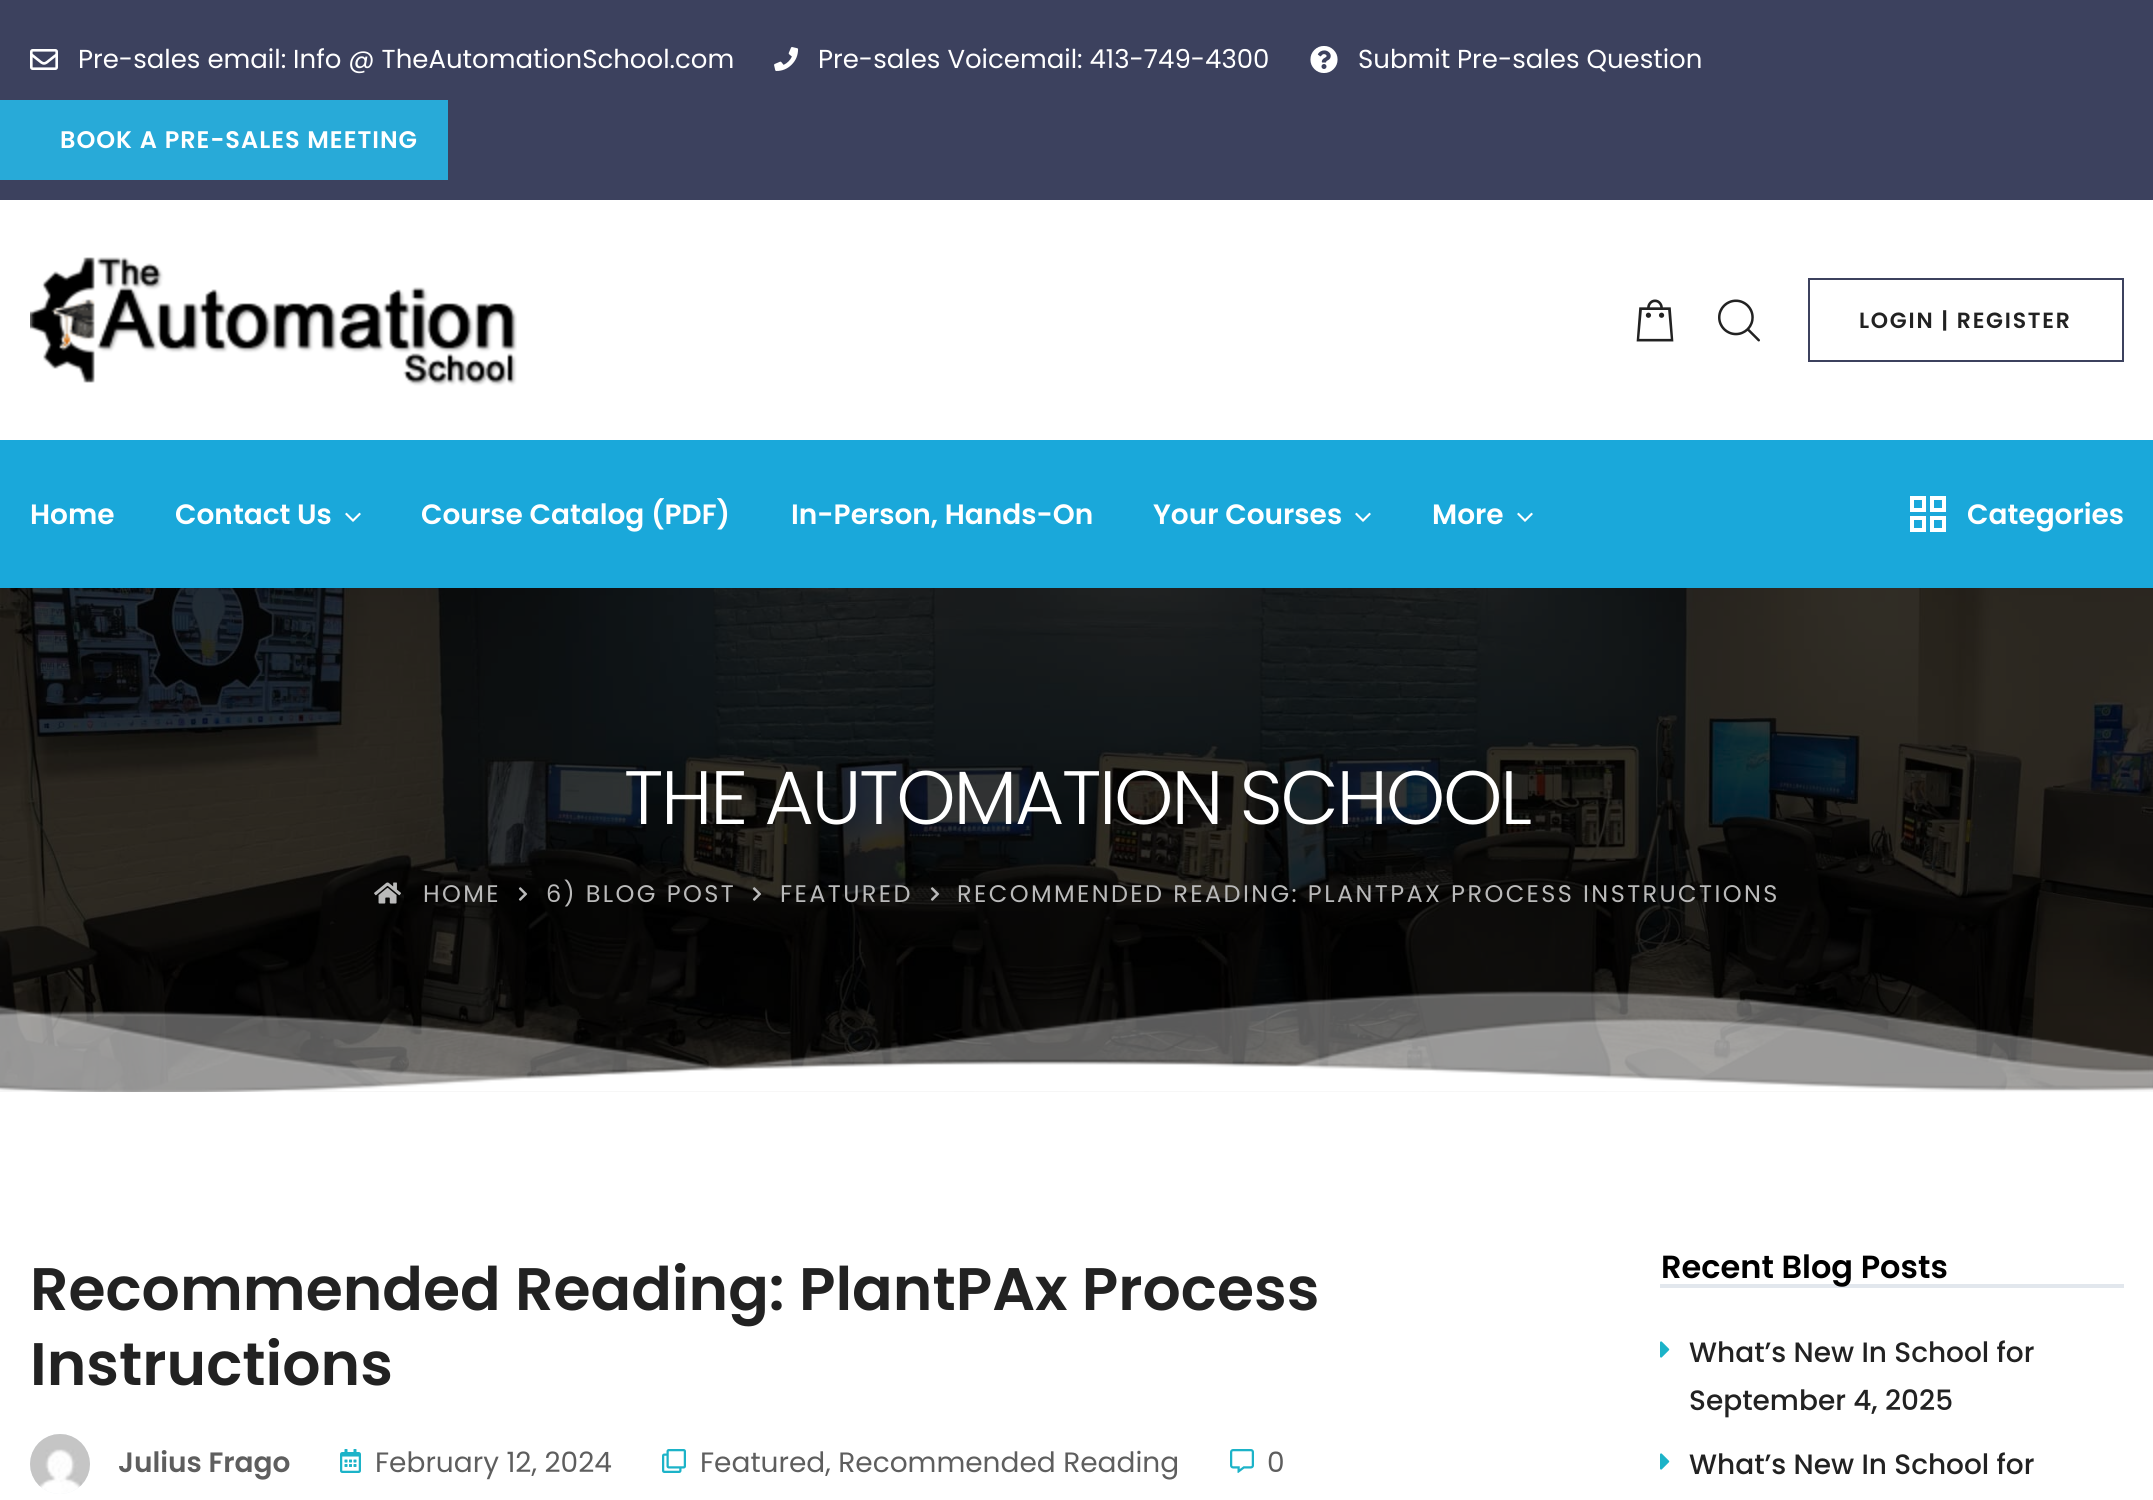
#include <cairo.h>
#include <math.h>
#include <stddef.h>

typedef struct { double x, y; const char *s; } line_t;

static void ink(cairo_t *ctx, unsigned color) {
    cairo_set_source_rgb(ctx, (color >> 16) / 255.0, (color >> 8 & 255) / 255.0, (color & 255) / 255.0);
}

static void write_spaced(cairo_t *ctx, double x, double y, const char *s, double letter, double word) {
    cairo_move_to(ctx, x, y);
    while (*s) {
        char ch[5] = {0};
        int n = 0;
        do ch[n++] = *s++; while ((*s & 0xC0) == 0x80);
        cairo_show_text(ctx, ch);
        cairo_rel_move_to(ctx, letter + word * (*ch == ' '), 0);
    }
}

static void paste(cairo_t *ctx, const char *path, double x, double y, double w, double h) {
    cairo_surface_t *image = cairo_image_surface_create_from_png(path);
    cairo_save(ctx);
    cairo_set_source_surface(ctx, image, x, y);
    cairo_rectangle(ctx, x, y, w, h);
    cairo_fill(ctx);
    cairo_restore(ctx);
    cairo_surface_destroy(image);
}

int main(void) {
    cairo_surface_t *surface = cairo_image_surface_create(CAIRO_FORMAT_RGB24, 2153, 1500);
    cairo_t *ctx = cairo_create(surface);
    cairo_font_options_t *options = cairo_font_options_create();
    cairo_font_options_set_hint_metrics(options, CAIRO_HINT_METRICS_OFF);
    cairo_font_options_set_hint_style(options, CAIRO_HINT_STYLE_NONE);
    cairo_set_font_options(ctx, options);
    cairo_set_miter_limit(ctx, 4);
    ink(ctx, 0xFFFFFF);
    cairo_paint(ctx);
    ink(ctx, 0x3C415E);
    cairo_rectangle(ctx, 0, 0, 2153, 200);
    cairo_fill(ctx);
    paste(ctx, "media/1.png", 30, 49, 28, 21);
    cairo_select_font_face(ctx, "Poppins", CAIRO_FONT_SLANT_NORMAL, CAIRO_FONT_WEIGHT_NORMAL);
    cairo_set_font_size(ctx, 26);
    ink(ctx, 0xFFFFFF);
    cairo_move_to(ctx, 78, 68);
    cairo_show_text(ctx, "Pre-sales email: Info @ TheAutomationSchool.com");
    paste(ctx, "media/2.png", 774, 47, 25, 24);
    cairo_move_to(ctx, 818, 68);
    cairo_show_text(ctx, "Pre-sales Voicemail: 413-749-4300");
    paste(ctx, "media/3.png", 1310, 46, 28, 27);
    cairo_move_to(ctx, 1358, 68);
    cairo_show_text(ctx, "Submit Pre-sales Question");
    ink(ctx, 0x28AAD8);
    cairo_rectangle(ctx, 0, 100, 448, 80);
    cairo_fill(ctx);
    cairo_select_font_face(ctx, "Poppins SemiBold", CAIRO_FONT_SLANT_NORMAL, CAIRO_FONT_WEIGHT_NORMAL);
    cairo_set_font_size(ctx, 24);
    ink(ctx, 0xFFFFFF);
    write_spaced(ctx, 60, 148, "BOOK A PRE-SALES MEETING", 1, 0);
    paste(ctx, "media/4.png", 30, 257, 487, 129);
    paste(ctx, "media/5.png", 1636, 299, 38, 43);
    paste(ctx, "media/6.png", 1718, 299, 42, 43);
    cairo_rectangle(ctx, 1809, 279, 314, 82);
    ink(ctx, 0x3C415E);
    cairo_stroke(ctx);
    cairo_set_font_size(ctx, 22);
    ink(ctx, 0x222222);
    write_spaced(ctx, 1859, 328, "LOGIN | REGISTER", 1.75, 0);
    ink(ctx, 0x1AA8DA);
    cairo_rectangle(ctx, 0, 440, 2153, 148);
    cairo_fill(ctx);
    cairo_set_font_size(ctx, 28);
    ink(ctx, 0xFFFFFF);
    cairo_move_to(ctx, 30, 524);
    cairo_show_text(ctx, "Home");
    cairo_move_to(ctx, 175, 524);
    cairo_show_text(ctx, "Contact Us");
    paste(ctx, "media/7.png", 345, 512, 16, 10);
    {
        static const line_t items[] = {
            {421, 524, "Course Catalog (PDF)"},
            {791, 524, "In-Person, Hands-On"},
            {1153, 524, "Your Courses"},
        };
        for (size_t i = 0; i < sizeof items / sizeof *items; i++) {
            cairo_move_to(ctx, items[i].x, items[i].y);
            cairo_show_text(ctx, items[i].s);
        }
    }
    paste(ctx, "media/7.png", 1355, 512, 16, 10);
    cairo_move_to(ctx, 1432, 524);
    cairo_show_text(ctx, "More");
    paste(ctx, "media/7.png", 1517, 512, 16, 10);
    cairo_rectangle(ctx, 1912, 498, 12, 12);
    cairo_set_line_width(ctx, 4);
    cairo_stroke(ctx);
    cairo_rectangle(ctx, 1932, 498, 12, 12);
    cairo_stroke(ctx);
    cairo_rectangle(ctx, 1912, 518, 12, 12);
    cairo_stroke(ctx);
    cairo_rectangle(ctx, 1932, 518, 12, 12);
    cairo_stroke(ctx);
    cairo_move_to(ctx, 1967, 524);
    cairo_show_text(ctx, "Categories");
    paste(ctx, "media/8.png", 0, 588, 2153, 504);
    cairo_select_font_face(ctx, "Poppins Light", CAIRO_FONT_SLANT_NORMAL, CAIRO_FONT_WEIGHT_NORMAL);
    cairo_set_font_size(ctx, 75.6);
    write_spaced(ctx, 624, 824, "THE AUTOMATION SCHOOL", -2.25, 0);
    paste(ctx, "media/9.png", 374, 882, 27, 22);
    cairo_select_font_face(ctx, "Poppins", CAIRO_FONT_SLANT_NORMAL, CAIRO_FONT_WEIGHT_NORMAL);
    cairo_set_font_size(ctx, 24);
    ink(ctx, 0xBABABA);
    write_spaced(ctx, 423, 902, "HOME", 2.4, 0);
    paste(ctx, "media/10.png", 518, 887, 10, 14);
    write_spaced(ctx, 546, 902, "6) BLOG POST", 2.4, 0);
    paste(ctx, "media/11.png", 752, 887, 10, 14);
    write_spaced(ctx, 780, 902, "FEATURED", 2.4, 0);
    paste(ctx, "media/12.png", 930, 887, 10, 14);
    write_spaced(ctx, 957, 902, "RECOMMENDED READING: PLANTPAX PROCESS INSTRUCTIONS", 2.4, 0);
    paste(ctx, "media/13.png", 0, 991, 2153, 101);
    cairo_select_font_face(ctx, "Poppins SemiBold", CAIRO_FONT_SLANT_NORMAL, CAIRO_FONT_WEIGHT_NORMAL);
    cairo_set_font_size(ctx, 60);
    ink(ctx, 0x222222);
    cairo_move_to(ctx, 30, 1310);
    cairo_show_text(ctx, "Recommended Reading: PlantPAx Process");
    cairo_move_to(ctx, 30, 1385);
    cairo_show_text(ctx, "Instructions");
    ink(ctx, 0xF0F3F6);
    cairo_new_path(ctx);
    cairo_arc(ctx, 60, 1464, 30, 0, 2 * M_PI);
    cairo_fill(ctx);
    paste(ctx, "media/14.png", 30, 1434, 60, 60);
    cairo_set_font_size(ctx, 28);
    ink(ctx, 0x5E5E5E);
    cairo_move_to(ctx, 118, 1472);
    cairo_show_text(ctx, "Julius Frago");
    paste(ctx, "media/15.png", 340, 1449, 21, 24);
    cairo_select_font_face(ctx, "Poppins", CAIRO_FONT_SLANT_NORMAL, CAIRO_FONT_WEIGHT_NORMAL);
    cairo_move_to(ctx, 375, 1472);
    cairo_show_text(ctx, "February 12, 2024");
    paste(ctx, "media/16.png", 662, 1449, 24, 24);
    cairo_move_to(ctx, 700, 1472);
    cairo_show_text(ctx, "Featured, Recommended Reading");
    paste(ctx, "media/17.png", 1230, 1449, 24, 24);
    cairo_move_to(ctx, 1267, 1472);
    cairo_show_text(ctx, "0");
    ink(ctx, 0xE2E7ED);
    cairo_rectangle(ctx, 1660, 1284, 464, 4);
    cairo_fill(ctx);
    cairo_select_font_face(ctx, "Poppins SemiBold", CAIRO_FONT_SLANT_NORMAL, CAIRO_FONT_WEIGHT_NORMAL);
    cairo_set_font_size(ctx, 32);
    ink(ctx, 0x000000);
    cairo_move_to(ctx, 1661, 1278);
    cairo_show_text(ctx, "Recent Blog Posts");
    paste(ctx, "media/18.png", 1660, 1341, 10, 17);
    cairo_select_font_face(ctx, "Poppins Medium", CAIRO_FONT_SLANT_NORMAL, CAIRO_FONT_WEIGHT_NORMAL);
    cairo_set_font_size(ctx, 28);
    ink(ctx, 0x222222);
    cairo_move_to(ctx, 1689, 1362);
    cairo_show_text(ctx, "What’s New In School for");
    cairo_move_to(ctx, 1689, 1410);
    cairo_show_text(ctx, "September 4, 2025");
    paste(ctx, "media/18.png", 1660, 1453, 10, 17);
    cairo_move_to(ctx, 1689, 1474);
    cairo_show_text(ctx, "What’s New In School for");
    cairo_surface_write_to_png(surface, "image.png");
    cairo_font_options_destroy(options);
    cairo_destroy(ctx);
    cairo_surface_destroy(surface);
    return 0;
}
